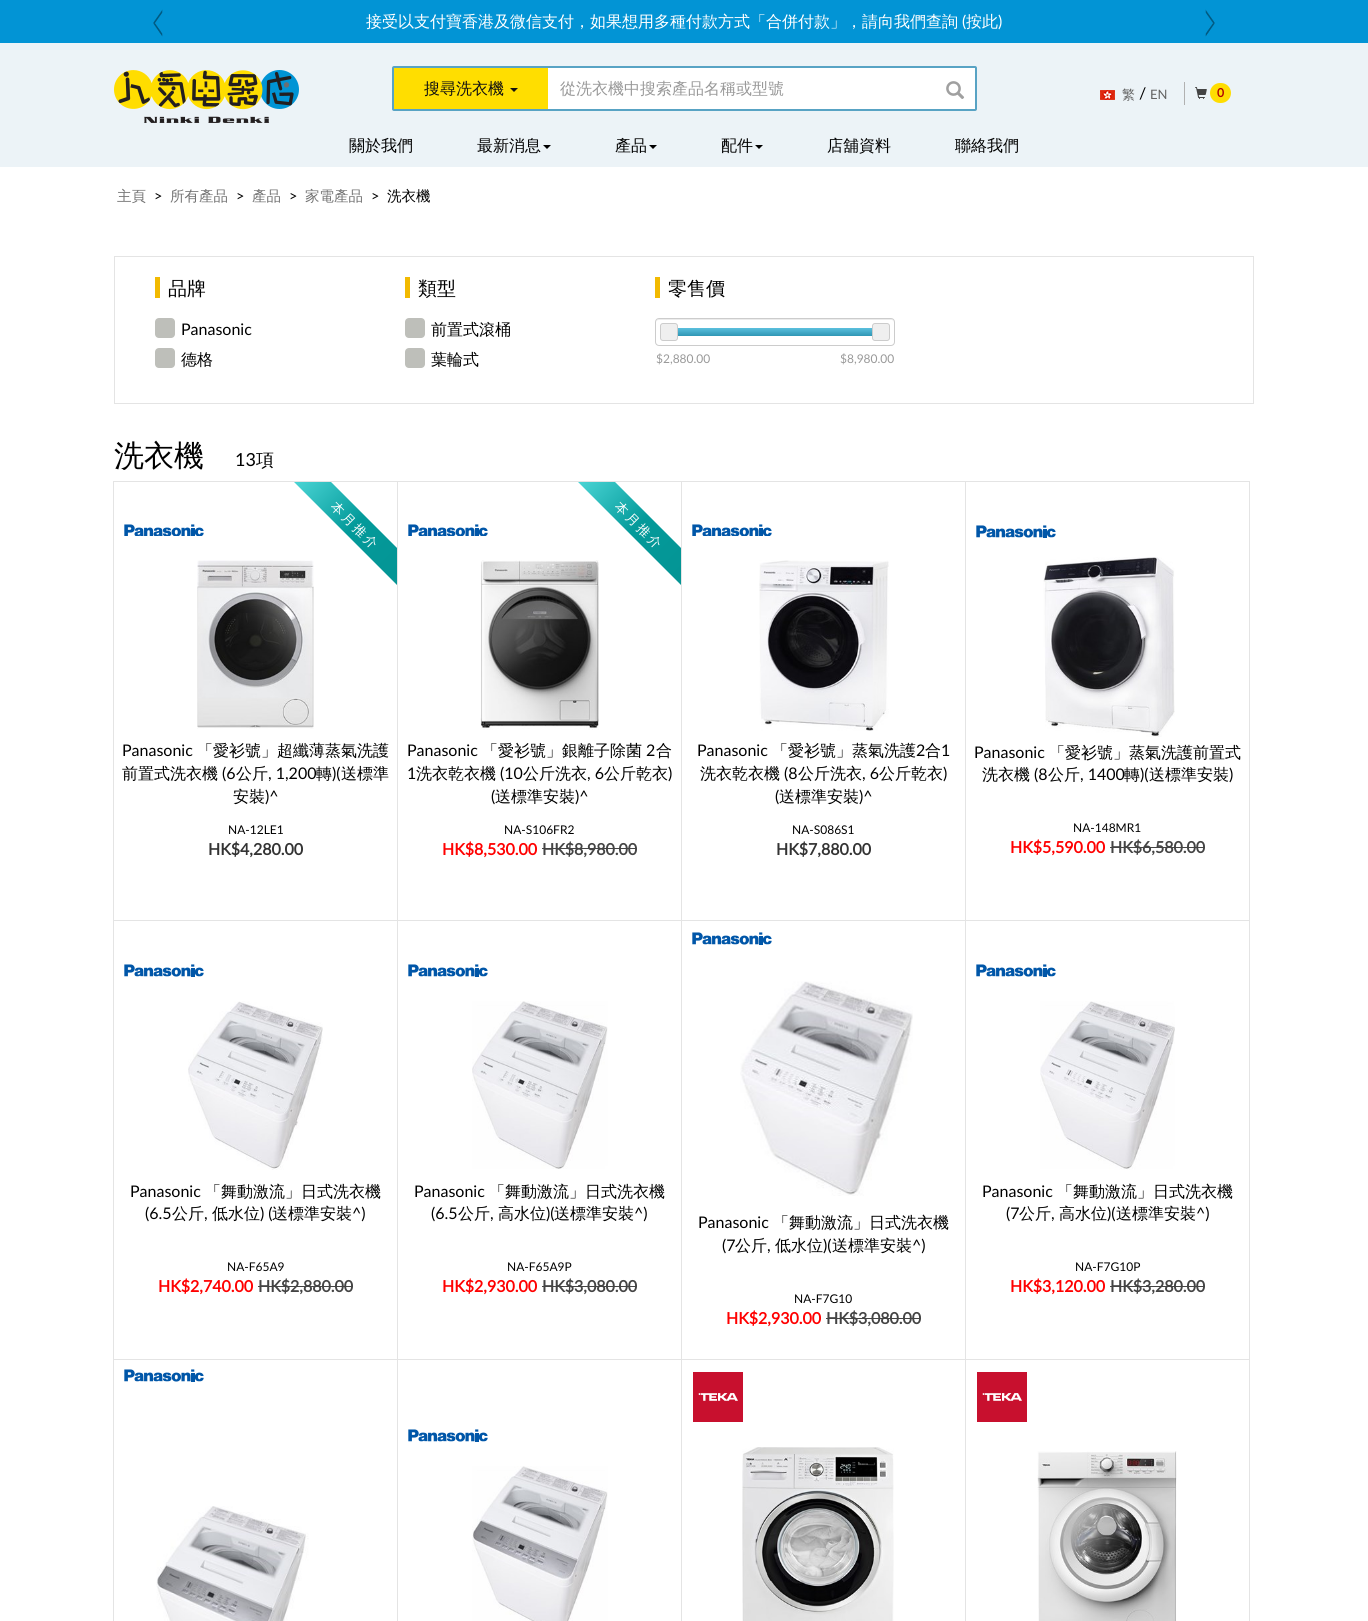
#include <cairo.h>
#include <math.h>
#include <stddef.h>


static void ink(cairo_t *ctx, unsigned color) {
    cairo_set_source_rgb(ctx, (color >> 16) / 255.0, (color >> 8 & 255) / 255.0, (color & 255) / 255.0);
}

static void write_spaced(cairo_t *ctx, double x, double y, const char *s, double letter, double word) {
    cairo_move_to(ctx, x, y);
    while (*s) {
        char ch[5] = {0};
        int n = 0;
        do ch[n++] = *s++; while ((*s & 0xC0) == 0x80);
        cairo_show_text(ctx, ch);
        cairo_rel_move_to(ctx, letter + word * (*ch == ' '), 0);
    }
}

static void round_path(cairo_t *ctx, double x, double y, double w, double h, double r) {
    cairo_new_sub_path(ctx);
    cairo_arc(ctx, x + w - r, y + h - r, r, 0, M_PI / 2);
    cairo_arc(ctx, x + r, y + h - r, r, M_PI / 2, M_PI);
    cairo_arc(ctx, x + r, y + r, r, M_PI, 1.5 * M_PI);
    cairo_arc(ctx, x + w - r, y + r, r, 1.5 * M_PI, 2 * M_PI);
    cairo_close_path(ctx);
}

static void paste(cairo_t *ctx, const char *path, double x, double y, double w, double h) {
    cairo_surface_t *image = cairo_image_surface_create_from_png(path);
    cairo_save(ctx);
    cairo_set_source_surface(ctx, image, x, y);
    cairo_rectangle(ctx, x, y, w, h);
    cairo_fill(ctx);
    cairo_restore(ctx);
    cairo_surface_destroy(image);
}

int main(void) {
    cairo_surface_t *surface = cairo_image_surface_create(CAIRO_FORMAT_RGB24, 1368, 1621);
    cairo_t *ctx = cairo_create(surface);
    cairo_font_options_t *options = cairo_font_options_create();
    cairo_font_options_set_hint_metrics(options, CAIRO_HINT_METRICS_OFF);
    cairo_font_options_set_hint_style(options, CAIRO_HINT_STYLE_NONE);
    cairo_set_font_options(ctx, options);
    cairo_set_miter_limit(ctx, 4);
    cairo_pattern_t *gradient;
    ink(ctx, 0xFFFFFF);
    cairo_paint(ctx);
    ink(ctx, 0x0294D5);
    cairo_rectangle(ctx, 0, 0, 1368, 43);
    cairo_fill(ctx);
    paste(ctx, "media/1.png", 153, 9, 10, 28);
    cairo_select_font_face(ctx, "WenQuanYi Zen Hei Medium", CAIRO_FONT_SLANT_NORMAL, CAIRO_FONT_WEIGHT_NORMAL);
    cairo_set_font_size(ctx, 16);
    ink(ctx, 0xFFFFFF);
    cairo_move_to(ctx, 366, 27);
    cairo_show_text(ctx, "接受以支付寶香港及微信支付，如果想用多種付款方式「合併付款」，請向我們查詢");
    cairo_select_font_face(ctx, "lato", CAIRO_FONT_SLANT_NORMAL, CAIRO_FONT_WEIGHT_NORMAL);
    cairo_move_to(ctx, 962, 27);
    cairo_show_text(ctx, "(");
    cairo_select_font_face(ctx, "WenQuanYi Zen Hei Medium", CAIRO_FONT_SLANT_NORMAL, CAIRO_FONT_WEIGHT_NORMAL);
    cairo_move_to(ctx, 966, 27);
    cairo_show_text(ctx, "按此");
    cairo_select_font_face(ctx, "lato", CAIRO_FONT_SLANT_NORMAL, CAIRO_FONT_WEIGHT_NORMAL);
    cairo_move_to(ctx, 998, 27);
    cairo_show_text(ctx, ")");
    paste(ctx, "media/2.png", 1205, 9, 10, 28);
    ink(ctx, 0xECF3F7);
    cairo_rectangle(ctx, 0, 43, 1368, 124);
    cairo_fill(ctx);
    paste(ctx, "media/3.png", 114, 70, 185, 53);
    ink(ctx, 0x58A3C4);
    round_path(ctx, 392, 66, 585, 45, 2);
    cairo_fill(ctx);
    ink(ctx, 0xFFDE00);
    cairo_rectangle(ctx, 394, 68, 154, 41);
    cairo_fill(ctx);
    cairo_select_font_face(ctx, "WenQuanYi Zen Hei Medium", CAIRO_FONT_SLANT_NORMAL, CAIRO_FONT_WEIGHT_NORMAL);
    ink(ctx, 0x111111);
    cairo_move_to(ctx, 424, 94);
    cairo_show_text(ctx, "搜尋洗衣機");
    cairo_new_path(ctx);
    cairo_move_to(ctx, 510, 88);
    cairo_line_to(ctx, 518, 88);
    cairo_line_to(ctx, 514, 92);
    cairo_close_path(ctx);
    cairo_fill(ctx);
    ink(ctx, 0xFFFFFF);
    cairo_rectangle(ctx, 548, 68, 427, 41);
    cairo_fill(ctx);
    ink(ctx, 0x999999);
    cairo_move_to(ctx, 560, 94);
    cairo_show_text(ctx, "從洗衣機中搜索產品名稱或型號");
    paste(ctx, "media/4.png", 946, 81, 19, 18);
    paste(ctx, "media/5.png", 1100, 90, 15, 10);
    cairo_set_font_size(ctx, 13);
    ink(ctx, 0x626262);
    cairo_move_to(ctx, 1122, 99);
    cairo_show_text(ctx, "繁");
    cairo_select_font_face(ctx, "lato", CAIRO_FONT_SLANT_NORMAL, CAIRO_FONT_WEIGHT_NORMAL);
    cairo_set_font_size(ctx, 16);
    ink(ctx, 0x000000);
    cairo_move_to(ctx, 1139, 99);
    cairo_show_text(ctx, "/");
    cairo_set_font_size(ctx, 13);
    ink(ctx, 0x626262);
    cairo_move_to(ctx, 1150, 99);
    cairo_show_text(ctx, "EN");
    ink(ctx, 0xB1B1B1);
    cairo_rectangle(ctx, 1184, 82, 1, 23);
    cairo_fill(ctx);
    paste(ctx, "media/6.png", 1195, 87, 12, 12);
    ink(ctx, 0xFFDD01);
    round_path(ctx, 1210, 83, 21, 20, 10);
    cairo_fill(ctx);
    cairo_select_font_face(ctx, "lato", CAIRO_FONT_SLANT_NORMAL, CAIRO_FONT_WEIGHT_BOLD);
    cairo_set_font_size(ctx, 12);
    ink(ctx, 0xB10101);
    cairo_move_to(ctx, 1217, 97);
    cairo_show_text(ctx, "0");
    cairo_select_font_face(ctx, "WenQuanYi Zen Hei Medium", CAIRO_FONT_SLANT_NORMAL, CAIRO_FONT_WEIGHT_NORMAL);
    cairo_set_font_size(ctx, 16);
    ink(ctx, 0x000000);
    cairo_move_to(ctx, 349, 151);
    cairo_show_text(ctx, "關於我們");
    cairo_move_to(ctx, 477, 151);
    cairo_show_text(ctx, "最新消息");
    cairo_new_path(ctx);
    cairo_move_to(ctx, 543, 145);
    cairo_line_to(ctx, 551, 145);
    cairo_line_to(ctx, 547, 149);
    cairo_close_path(ctx);
    cairo_fill(ctx);
    cairo_move_to(ctx, 615, 151);
    cairo_show_text(ctx, "產品");
    cairo_new_path(ctx);
    cairo_move_to(ctx, 649, 145);
    cairo_line_to(ctx, 657, 145);
    cairo_line_to(ctx, 653, 149);
    cairo_close_path(ctx);
    cairo_fill(ctx);
    cairo_move_to(ctx, 721, 151);
    cairo_show_text(ctx, "配件");
    cairo_new_path(ctx);
    cairo_move_to(ctx, 755, 145);
    cairo_line_to(ctx, 763, 145);
    cairo_line_to(ctx, 759, 149);
    cairo_close_path(ctx);
    cairo_fill(ctx);
    cairo_move_to(ctx, 827, 151);
    cairo_show_text(ctx, "店舖資料");
    cairo_move_to(ctx, 955, 151);
    cairo_show_text(ctx, "聯絡我們");
    cairo_set_font_size(ctx, 14.5);
    ink(ctx, 0x727272);
    cairo_move_to(ctx, 117, 201);
    cairo_show_text(ctx, "主頁");
    cairo_select_font_face(ctx, "lato", CAIRO_FONT_SLANT_NORMAL, CAIRO_FONT_WEIGHT_NORMAL);
    ink(ctx, 0x000000);
    cairo_move_to(ctx, 154, 201);
    cairo_show_text(ctx, ">");
    cairo_select_font_face(ctx, "WenQuanYi Zen Hei Medium", CAIRO_FONT_SLANT_NORMAL, CAIRO_FONT_WEIGHT_NORMAL);
    ink(ctx, 0x727272);
    cairo_move_to(ctx, 170, 201);
    cairo_show_text(ctx, "所有產品");
    cairo_select_font_face(ctx, "lato", CAIRO_FONT_SLANT_NORMAL, CAIRO_FONT_WEIGHT_NORMAL);
    ink(ctx, 0x000000);
    cairo_move_to(ctx, 236, 201);
    cairo_show_text(ctx, ">");
    cairo_select_font_face(ctx, "WenQuanYi Zen Hei Medium", CAIRO_FONT_SLANT_NORMAL, CAIRO_FONT_WEIGHT_NORMAL);
    ink(ctx, 0x727272);
    cairo_move_to(ctx, 252, 201);
    cairo_show_text(ctx, "產品");
    cairo_select_font_face(ctx, "lato", CAIRO_FONT_SLANT_NORMAL, CAIRO_FONT_WEIGHT_NORMAL);
    ink(ctx, 0x000000);
    cairo_move_to(ctx, 289, 201);
    cairo_show_text(ctx, ">");
    cairo_select_font_face(ctx, "WenQuanYi Zen Hei Medium", CAIRO_FONT_SLANT_NORMAL, CAIRO_FONT_WEIGHT_NORMAL);
    ink(ctx, 0x727272);
    cairo_move_to(ctx, 305, 201);
    cairo_show_text(ctx, "家電產品");
    cairo_select_font_face(ctx, "lato", CAIRO_FONT_SLANT_NORMAL, CAIRO_FONT_WEIGHT_NORMAL);
    ink(ctx, 0x000000);
    cairo_move_to(ctx, 371, 201);
    cairo_show_text(ctx, ">");
    cairo_select_font_face(ctx, "WenQuanYi Zen Hei Medium", CAIRO_FONT_SLANT_NORMAL, CAIRO_FONT_WEIGHT_NORMAL);
    cairo_move_to(ctx, 387, 201);
    cairo_show_text(ctx, "洗衣機");
    cairo_rectangle(ctx, 114.5, 256.5, 1139, 147);
    ink(ctx, 0xE4E4E4);
    cairo_set_line_width(ctx, 1);
    cairo_stroke(ctx);
    ink(ctx, 0xF2BA01);
    cairo_rectangle(ctx, 155, 277, 5, 21);
    cairo_fill(ctx);
    cairo_set_font_size(ctx, 19);
    ink(ctx, 0x000000);
    cairo_move_to(ctx, 168, 295);
    cairo_show_text(ctx, "品牌");
    paste(ctx, "media/7.png", 155, 318, 20, 20);
    cairo_select_font_face(ctx, "lato", CAIRO_FONT_SLANT_NORMAL, CAIRO_FONT_WEIGHT_NORMAL);
    cairo_set_font_size(ctx, 16);
    cairo_move_to(ctx, 181, 335);
    cairo_show_text(ctx, "Panasonic");
    paste(ctx, "media/7.png", 155, 348, 20, 20);
    cairo_select_font_face(ctx, "WenQuanYi Zen Hei Medium", CAIRO_FONT_SLANT_NORMAL, CAIRO_FONT_WEIGHT_NORMAL);
    cairo_move_to(ctx, 181, 365);
    cairo_show_text(ctx, "德格");
    ink(ctx, 0xF2BA01);
    cairo_rectangle(ctx, 405, 277, 5, 21);
    cairo_fill(ctx);
    cairo_set_font_size(ctx, 19);
    ink(ctx, 0x000000);
    cairo_move_to(ctx, 418, 295);
    cairo_show_text(ctx, "類型");
    paste(ctx, "media/7.png", 405, 318, 20, 20);
    cairo_set_font_size(ctx, 16);
    cairo_move_to(ctx, 431, 335);
    cairo_show_text(ctx, "前置式滾桶");
    paste(ctx, "media/7.png", 405, 348, 20, 20);
    cairo_move_to(ctx, 431, 365);
    cairo_show_text(ctx, "葉輪式");
    ink(ctx, 0xF2BA01);
    cairo_rectangle(ctx, 655, 277, 5, 21);
    cairo_fill(ctx);
    cairo_set_font_size(ctx, 19);
    ink(ctx, 0x000000);
    cairo_move_to(ctx, 668, 295);
    cairo_show_text(ctx, "零售價");
    ink(ctx, 0xECECEC);
    cairo_new_path(ctx);
    cairo_move_to(ctx, 659, 320);
    cairo_line_to(ctx, 892, 320);
    cairo_line_to(ctx, 894, 321);
    cairo_line_to(ctx, 894, 323);
    cairo_curve_to(ctx, 894, 321, 893, 319, 891, 319);
    cairo_line_to(ctx, 659, 319);
    cairo_curve_to(ctx, 657, 319, 656, 321, 656, 323);
    cairo_curve_to(ctx, 656, 321, 657, 320, 659, 320);
    cairo_close_path(ctx);
    cairo_fill(ctx);
    round_path(ctx, 655.5, 318.5, 239, 27, 3.5);
    ink(ctx, 0xCCCCCC);
    cairo_stroke(ctx);
    ink(ctx, 0xEFEFEF);
    round_path(ctx, 660.5, 323.5, 17, 17, 2.5);
    cairo_fill_preserve(ctx);
    ink(ctx, 0xCCCCCC);
    cairo_stroke(ctx);
    gradient = cairo_pattern_create_linear(775, 328, 775, 336);
    cairo_pattern_add_color_stop_rgba(gradient, 0, 0.357, 0.753, 0.871, 1);
    cairo_pattern_add_color_stop_rgba(gradient, 1, 0.184, 0.588, 0.706, 1);
    cairo_set_source(ctx, gradient);
    cairo_pattern_destroy(gradient);
    cairo_rectangle(ctx, 678, 328, 194, 8);
    cairo_fill(ctx);
    ink(ctx, 0xEFEFEF);
    round_path(ctx, 872.5, 323.5, 17, 17, 2.5);
    cairo_fill_preserve(ctx);
    ink(ctx, 0xCCCCCC);
    cairo_stroke(ctx);
    cairo_select_font_face(ctx, "lato", CAIRO_FONT_SLANT_NORMAL, CAIRO_FONT_WEIGHT_NORMAL);
    cairo_set_font_size(ctx, 12);
    ink(ctx, 0x999999);
    cairo_move_to(ctx, 656, 363);
    cairo_show_text(ctx, "$2,880.00");
    cairo_move_to(ctx, 840, 363);
    cairo_show_text(ctx, "$8,980.00");
    cairo_select_font_face(ctx, "WenQuanYi Zen Hei Medium", CAIRO_FONT_SLANT_NORMAL, CAIRO_FONT_WEIGHT_NORMAL);
    cairo_set_font_size(ctx, 30);
    ink(ctx, 0x000000);
    cairo_move_to(ctx, 114, 466);
    cairo_show_text(ctx, "洗衣機");
    cairo_select_font_face(ctx, "lato", CAIRO_FONT_SLANT_NORMAL, CAIRO_FONT_WEIGHT_NORMAL);
    cairo_set_font_size(ctx, 18);
    cairo_move_to(ctx, 235, 466);
    cairo_show_text(ctx, "13");
    cairo_select_font_face(ctx, "WenQuanYi Zen Hei Medium", CAIRO_FONT_SLANT_NORMAL, CAIRO_FONT_WEIGHT_NORMAL);
    cairo_move_to(ctx, 256, 466);
    cairo_show_text(ctx, "項");
    cairo_rectangle(ctx, 113.5, 481.5, 284, 439);
    ink(ctx, 0xE4E4E4);
    cairo_stroke(ctx);
    paste(ctx, "media/8.png", 124, 524, 80, 12);
    paste(ctx, "media/9.png", 197, 560, 117, 169);
    cairo_save(ctx);
    cairo_rectangle(ctx, 287, 482, 110, 110);
    cairo_clip(ctx);
    gradient = cairo_pattern_create_linear(291, 461, 419, 589);
    cairo_pattern_add_color_stop_rgba(gradient, 0, 0.357, 0.886, 0.886, 1);
    cairo_pattern_add_color_stop_rgba(gradient, 0.5, 0.012, 0.604, 0.604, 1);
    cairo_pattern_add_color_stop_rgba(gradient, 1, 0.02, 0.576, 0.576, 1);
    cairo_set_source(ctx, gradient);
    cairo_pattern_destroy(gradient);
    cairo_new_path(ctx);
    cairo_move_to(ctx, 301, 452);
    cairo_line_to(ctx, 428, 579);
    cairo_line_to(ctx, 410, 598);
    cairo_line_to(ctx, 282, 470);
    cairo_close_path(ctx);
    cairo_fill(ctx);
    cairo_restore(ctx);
    cairo_set_font_size(ctx, 13);
    ink(ctx, 0xFFFFFF);
    cairo_save(ctx);
    cairo_translate(ctx, 330, 507);
    cairo_rotate(ctx, 45 * M_PI / 180);
    write_spaced(ctx, 0, 0, "本月推介", 2.5, 0);
    cairo_restore(ctx);
    cairo_select_font_face(ctx, "lato", CAIRO_FONT_SLANT_NORMAL, CAIRO_FONT_WEIGHT_NORMAL);
    cairo_set_font_size(ctx, 16);
    ink(ctx, 0x000000);
    cairo_move_to(ctx, 122, 756);
    cairo_show_text(ctx, "Panasonic");
    cairo_select_font_face(ctx, "WenQuanYi Zen Hei Medium", CAIRO_FONT_SLANT_NORMAL, CAIRO_FONT_WEIGHT_NORMAL);
    cairo_move_to(ctx, 197, 756);
    cairo_show_text(ctx, "「愛衫號」超纖薄蒸氣洗護");
    cairo_move_to(ctx, 122, 779);
    cairo_show_text(ctx, "前置式洗衣機");
    cairo_select_font_face(ctx, "lato", CAIRO_FONT_SLANT_NORMAL, CAIRO_FONT_WEIGHT_NORMAL);
    cairo_move_to(ctx, 222, 779);
    cairo_show_text(ctx, "(6");
    cairo_select_font_face(ctx, "WenQuanYi Zen Hei Medium", CAIRO_FONT_SLANT_NORMAL, CAIRO_FONT_WEIGHT_NORMAL);
    cairo_move_to(ctx, 236, 779);
    cairo_show_text(ctx, "公斤");
    cairo_select_font_face(ctx, "lato", CAIRO_FONT_SLANT_NORMAL, CAIRO_FONT_WEIGHT_NORMAL);
    cairo_move_to(ctx, 268, 779);
    cairo_show_text(ctx, ", 1,200");
    cairo_select_font_face(ctx, "WenQuanYi Zen Hei Medium", CAIRO_FONT_SLANT_NORMAL, CAIRO_FONT_WEIGHT_NORMAL);
    cairo_move_to(ctx, 316, 779);
    cairo_show_text(ctx, "轉");
    cairo_select_font_face(ctx, "lato", CAIRO_FONT_SLANT_NORMAL, CAIRO_FONT_WEIGHT_NORMAL);
    cairo_move_to(ctx, 332, 779);
    cairo_show_text(ctx, ")(");
    cairo_select_font_face(ctx, "WenQuanYi Zen Hei Medium", CAIRO_FONT_SLANT_NORMAL, CAIRO_FONT_WEIGHT_NORMAL);
    cairo_move_to(ctx, 341, 779);
    cairo_show_text(ctx, "送標準");
    cairo_move_to(ctx, 233, 802);
    cairo_show_text(ctx, "安裝");
    cairo_select_font_face(ctx, "lato", CAIRO_FONT_SLANT_NORMAL, CAIRO_FONT_WEIGHT_NORMAL);
    cairo_move_to(ctx, 265, 802);
    cairo_show_text(ctx, ")^");
    cairo_set_font_size(ctx, 12);
    cairo_move_to(ctx, 228, 834);
    cairo_show_text(ctx, "NA-12LE1");
    cairo_select_font_face(ctx, "lato", CAIRO_FONT_SLANT_NORMAL, CAIRO_FONT_WEIGHT_BOLD);
    cairo_set_font_size(ctx, 16);
    ink(ctx, 0x333333);
    cairo_move_to(ctx, 208, 855);
    cairo_show_text(ctx, "HK$4,280.00");
    cairo_rectangle(ctx, 397.5, 481.5, 284, 439);
    ink(ctx, 0xE4E4E4);
    cairo_stroke(ctx);
    paste(ctx, "media/8.png", 408, 524, 80, 12);
    paste(ctx, "media/10.png", 480, 560, 119, 170);
    cairo_save(ctx);
    cairo_rectangle(ctx, 571, 482, 110, 110);
    cairo_clip(ctx);
    gradient = cairo_pattern_create_linear(575, 461, 703, 589);
    cairo_pattern_add_color_stop_rgba(gradient, 0, 0.357, 0.886, 0.886, 1);
    cairo_pattern_add_color_stop_rgba(gradient, 0.5, 0.012, 0.604, 0.604, 1);
    cairo_pattern_add_color_stop_rgba(gradient, 1, 0.02, 0.576, 0.576, 1);
    cairo_set_source(ctx, gradient);
    cairo_pattern_destroy(gradient);
    cairo_new_path(ctx);
    cairo_move_to(ctx, 585, 452);
    cairo_line_to(ctx, 712, 579);
    cairo_line_to(ctx, 694, 598);
    cairo_line_to(ctx, 566, 470);
    cairo_close_path(ctx);
    cairo_fill(ctx);
    cairo_restore(ctx);
    cairo_select_font_face(ctx, "WenQuanYi Zen Hei Medium", CAIRO_FONT_SLANT_NORMAL, CAIRO_FONT_WEIGHT_NORMAL);
    cairo_set_font_size(ctx, 13);
    ink(ctx, 0xFFFFFF);
    cairo_save(ctx);
    cairo_translate(ctx, 614, 507);
    cairo_rotate(ctx, 45 * M_PI / 180);
    write_spaced(ctx, 0, 0, "本月推介", 2.5, 0);
    cairo_restore(ctx);
    cairo_select_font_face(ctx, "lato", CAIRO_FONT_SLANT_NORMAL, CAIRO_FONT_WEIGHT_NORMAL);
    cairo_set_font_size(ctx, 16);
    ink(ctx, 0x000000);
    cairo_move_to(ctx, 407, 756);
    cairo_show_text(ctx, "Panasonic");
    cairo_select_font_face(ctx, "WenQuanYi Zen Hei Medium", CAIRO_FONT_SLANT_NORMAL, CAIRO_FONT_WEIGHT_NORMAL);
    cairo_move_to(ctx, 482, 756);
    cairo_show_text(ctx, "「愛衫號」銀離子除菌");
    cairo_select_font_face(ctx, "lato", CAIRO_FONT_SLANT_NORMAL, CAIRO_FONT_WEIGHT_NORMAL);
    cairo_move_to(ctx, 646, 756);
    cairo_show_text(ctx, "2");
    cairo_select_font_face(ctx, "WenQuanYi Zen Hei Medium", CAIRO_FONT_SLANT_NORMAL, CAIRO_FONT_WEIGHT_NORMAL);
    cairo_move_to(ctx, 656, 756);
    cairo_show_text(ctx, "合");
    cairo_select_font_face(ctx, "lato", CAIRO_FONT_SLANT_NORMAL, CAIRO_FONT_WEIGHT_NORMAL);
    cairo_move_to(ctx, 407, 779);
    cairo_show_text(ctx, "1");
    cairo_select_font_face(ctx, "WenQuanYi Zen Hei Medium", CAIRO_FONT_SLANT_NORMAL, CAIRO_FONT_WEIGHT_NORMAL);
    cairo_move_to(ctx, 416, 779);
    cairo_show_text(ctx, "洗衣乾衣機");
    cairo_select_font_face(ctx, "lato", CAIRO_FONT_SLANT_NORMAL, CAIRO_FONT_WEIGHT_NORMAL);
    cairo_move_to(ctx, 500, 779);
    cairo_show_text(ctx, "(10");
    cairo_select_font_face(ctx, "WenQuanYi Zen Hei Medium", CAIRO_FONT_SLANT_NORMAL, CAIRO_FONT_WEIGHT_NORMAL);
    cairo_move_to(ctx, 523, 779);
    cairo_show_text(ctx, "公斤洗衣");
    cairo_select_font_face(ctx, "lato", CAIRO_FONT_SLANT_NORMAL, CAIRO_FONT_WEIGHT_NORMAL);
    cairo_move_to(ctx, 587, 779);
    cairo_show_text(ctx, ", 6");
    cairo_select_font_face(ctx, "WenQuanYi Zen Hei Medium", CAIRO_FONT_SLANT_NORMAL, CAIRO_FONT_WEIGHT_NORMAL);
    cairo_move_to(ctx, 604, 779);
    cairo_show_text(ctx, "公斤乾衣");
    cairo_select_font_face(ctx, "lato", CAIRO_FONT_SLANT_NORMAL, CAIRO_FONT_WEIGHT_NORMAL);
    cairo_move_to(ctx, 668, 779);
    cairo_show_text(ctx, ")");
    cairo_move_to(ctx, 491, 802);
    cairo_show_text(ctx, "(");
    cairo_select_font_face(ctx, "WenQuanYi Zen Hei Medium", CAIRO_FONT_SLANT_NORMAL, CAIRO_FONT_WEIGHT_NORMAL);
    cairo_move_to(ctx, 495, 802);
    cairo_show_text(ctx, "送標準安裝");
    cairo_select_font_face(ctx, "lato", CAIRO_FONT_SLANT_NORMAL, CAIRO_FONT_WEIGHT_NORMAL);
    cairo_move_to(ctx, 575, 802);
    cairo_show_text(ctx, ")^");
    cairo_set_font_size(ctx, 12);
    cairo_move_to(ctx, 504, 834);
    cairo_show_text(ctx, "NA-S106FR2");
    cairo_select_font_face(ctx, "lato", CAIRO_FONT_SLANT_NORMAL, CAIRO_FONT_WEIGHT_BOLD);
    cairo_set_font_size(ctx, 16);
    ink(ctx, 0xFF0000);
    cairo_move_to(ctx, 442, 855);
    cairo_show_text(ctx, "HK$8,530.00");
    ink(ctx, 0x444444);
    cairo_move_to(ctx, 542, 855);
    cairo_show_text(ctx, "HK$8,980.00");
    cairo_rectangle(ctx, 542, 848, 95, 1);
    cairo_fill(ctx);
    cairo_rectangle(ctx, 681.5, 481.5, 284, 439);
    ink(ctx, 0xE4E4E4);
    cairo_stroke(ctx);
    paste(ctx, "media/8.png", 692, 524, 80, 12);
    paste(ctx, "media/11.png", 759, 560, 130, 171);
    cairo_select_font_face(ctx, "lato", CAIRO_FONT_SLANT_NORMAL, CAIRO_FONT_WEIGHT_NORMAL);
    ink(ctx, 0x000000);
    cairo_move_to(ctx, 697, 756);
    cairo_show_text(ctx, "Panasonic");
    cairo_select_font_face(ctx, "WenQuanYi Zen Hei Medium", CAIRO_FONT_SLANT_NORMAL, CAIRO_FONT_WEIGHT_NORMAL);
    cairo_move_to(ctx, 772, 756);
    cairo_show_text(ctx, "「愛衫號」蒸氣洗護");
    cairo_select_font_face(ctx, "lato", CAIRO_FONT_SLANT_NORMAL, CAIRO_FONT_WEIGHT_NORMAL);
    cairo_move_to(ctx, 916, 756);
    cairo_show_text(ctx, "2");
    cairo_select_font_face(ctx, "WenQuanYi Zen Hei Medium", CAIRO_FONT_SLANT_NORMAL, CAIRO_FONT_WEIGHT_NORMAL);
    cairo_move_to(ctx, 925, 756);
    cairo_show_text(ctx, "合");
    cairo_select_font_face(ctx, "lato", CAIRO_FONT_SLANT_NORMAL, CAIRO_FONT_WEIGHT_NORMAL);
    cairo_move_to(ctx, 941, 756);
    cairo_show_text(ctx, "1");
    cairo_select_font_face(ctx, "WenQuanYi Zen Hei Medium", CAIRO_FONT_SLANT_NORMAL, CAIRO_FONT_WEIGHT_NORMAL);
    cairo_move_to(ctx, 700, 779);
    cairo_show_text(ctx, "洗衣乾衣機");
    cairo_select_font_face(ctx, "lato", CAIRO_FONT_SLANT_NORMAL, CAIRO_FONT_WEIGHT_NORMAL);
    cairo_move_to(ctx, 784, 779);
    cairo_show_text(ctx, "(8");
    cairo_select_font_face(ctx, "WenQuanYi Zen Hei Medium", CAIRO_FONT_SLANT_NORMAL, CAIRO_FONT_WEIGHT_NORMAL);
    cairo_move_to(ctx, 798, 779);
    cairo_show_text(ctx, "公斤洗衣");
    cairo_select_font_face(ctx, "lato", CAIRO_FONT_SLANT_NORMAL, CAIRO_FONT_WEIGHT_NORMAL);
    cairo_move_to(ctx, 862, 779);
    cairo_show_text(ctx, ", 6");
    cairo_select_font_face(ctx, "WenQuanYi Zen Hei Medium", CAIRO_FONT_SLANT_NORMAL, CAIRO_FONT_WEIGHT_NORMAL);
    cairo_move_to(ctx, 879, 779);
    cairo_show_text(ctx, "公斤乾衣");
    cairo_select_font_face(ctx, "lato", CAIRO_FONT_SLANT_NORMAL, CAIRO_FONT_WEIGHT_NORMAL);
    cairo_move_to(ctx, 943, 779);
    cairo_show_text(ctx, ")");
    cairo_move_to(ctx, 775, 802);
    cairo_show_text(ctx, "(");
    cairo_select_font_face(ctx, "WenQuanYi Zen Hei Medium", CAIRO_FONT_SLANT_NORMAL, CAIRO_FONT_WEIGHT_NORMAL);
    cairo_move_to(ctx, 779, 802);
    cairo_show_text(ctx, "送標準安裝");
    cairo_select_font_face(ctx, "lato", CAIRO_FONT_SLANT_NORMAL, CAIRO_FONT_WEIGHT_NORMAL);
    cairo_move_to(ctx, 859, 802);
    cairo_show_text(ctx, ")^");
    cairo_set_font_size(ctx, 12);
    cairo_move_to(ctx, 792, 834);
    cairo_show_text(ctx, "NA-S086S1");
    cairo_select_font_face(ctx, "lato", CAIRO_FONT_SLANT_NORMAL, CAIRO_FONT_WEIGHT_BOLD);
    cairo_set_font_size(ctx, 16);
    ink(ctx, 0x333333);
    cairo_move_to(ctx, 776, 855);
    cairo_show_text(ctx, "HK$7,880.00");
    cairo_rectangle(ctx, 965.5, 481.5, 284, 439);
    ink(ctx, 0xE4E4E4);
    cairo_stroke(ctx);
    paste(ctx, "media/12.png", 976, 525, 80, 13);
    paste(ctx, "media/13.png", 1043, 557, 132, 180);
    cairo_select_font_face(ctx, "lato", CAIRO_FONT_SLANT_NORMAL, CAIRO_FONT_WEIGHT_NORMAL);
    ink(ctx, 0x000000);
    cairo_move_to(ctx, 974, 758);
    cairo_show_text(ctx, "Panasonic");
    cairo_select_font_face(ctx, "WenQuanYi Zen Hei Medium", CAIRO_FONT_SLANT_NORMAL, CAIRO_FONT_WEIGHT_NORMAL);
    cairo_move_to(ctx, 1049, 758);
    cairo_show_text(ctx, "「愛衫號」蒸氣洗護前置式");
    cairo_move_to(ctx, 982, 780);
    cairo_show_text(ctx, "洗衣機");
    cairo_select_font_face(ctx, "lato", CAIRO_FONT_SLANT_NORMAL, CAIRO_FONT_WEIGHT_NORMAL);
    cairo_move_to(ctx, 1034, 780);
    cairo_show_text(ctx, "(8");
    cairo_select_font_face(ctx, "WenQuanYi Zen Hei Medium", CAIRO_FONT_SLANT_NORMAL, CAIRO_FONT_WEIGHT_NORMAL);
    cairo_move_to(ctx, 1048, 780);
    cairo_show_text(ctx, "公斤");
    cairo_select_font_face(ctx, "lato", CAIRO_FONT_SLANT_NORMAL, CAIRO_FONT_WEIGHT_NORMAL);
    cairo_move_to(ctx, 1080, 780);
    cairo_show_text(ctx, ", 1400");
    cairo_select_font_face(ctx, "WenQuanYi Zen Hei Medium", CAIRO_FONT_SLANT_NORMAL, CAIRO_FONT_WEIGHT_NORMAL);
    cairo_move_to(ctx, 1124, 780);
    cairo_show_text(ctx, "轉");
    cairo_select_font_face(ctx, "lato", CAIRO_FONT_SLANT_NORMAL, CAIRO_FONT_WEIGHT_NORMAL);
    cairo_move_to(ctx, 1140, 780);
    cairo_show_text(ctx, ")(");
    cairo_select_font_face(ctx, "WenQuanYi Zen Hei Medium", CAIRO_FONT_SLANT_NORMAL, CAIRO_FONT_WEIGHT_NORMAL);
    cairo_move_to(ctx, 1149, 780);
    cairo_show_text(ctx, "送標準安裝");
    cairo_select_font_face(ctx, "lato", CAIRO_FONT_SLANT_NORMAL, CAIRO_FONT_WEIGHT_NORMAL);
    cairo_move_to(ctx, 1229, 780);
    cairo_show_text(ctx, ")");
    cairo_set_font_size(ctx, 12);
    cairo_move_to(ctx, 1073, 832);
    cairo_show_text(ctx, "NA-148MR1");
    cairo_select_font_face(ctx, "lato", CAIRO_FONT_SLANT_NORMAL, CAIRO_FONT_WEIGHT_BOLD);
    cairo_set_font_size(ctx, 16);
    ink(ctx, 0xFF0000);
    cairo_move_to(ctx, 1010, 853);
    cairo_show_text(ctx, "HK$5,590.00");
    ink(ctx, 0x444444);
    cairo_move_to(ctx, 1110, 853);
    cairo_show_text(ctx, "HK$6,580.00");
    cairo_rectangle(ctx, 1110, 847, 95, 1);
    cairo_fill(ctx);
    cairo_rectangle(ctx, 113.5, 920.5, 284, 439);
    ink(ctx, 0xE4E4E4);
    cairo_stroke(ctx);
    paste(ctx, "media/12.png", 124, 964, 80, 13);
    paste(ctx, "media/14.png", 188, 1001, 135, 169);
    cairo_select_font_face(ctx, "lato", CAIRO_FONT_SLANT_NORMAL, CAIRO_FONT_WEIGHT_NORMAL);
    ink(ctx, 0x000000);
    cairo_move_to(ctx, 130, 1197);
    cairo_show_text(ctx, "Panasonic");
    cairo_select_font_face(ctx, "WenQuanYi Zen Hei Medium", CAIRO_FONT_SLANT_NORMAL, CAIRO_FONT_WEIGHT_NORMAL);
    cairo_move_to(ctx, 205, 1197);
    cairo_show_text(ctx, "「舞動激流」日式洗衣機");
    cairo_select_font_face(ctx, "lato", CAIRO_FONT_SLANT_NORMAL, CAIRO_FONT_WEIGHT_NORMAL);
    cairo_move_to(ctx, 145, 1219);
    cairo_show_text(ctx, "(6.5");
    cairo_select_font_face(ctx, "WenQuanYi Zen Hei Medium", CAIRO_FONT_SLANT_NORMAL, CAIRO_FONT_WEIGHT_NORMAL);
    cairo_move_to(ctx, 172, 1219);
    cairo_show_text(ctx, "公斤");
    cairo_select_font_face(ctx, "lato", CAIRO_FONT_SLANT_NORMAL, CAIRO_FONT_WEIGHT_NORMAL);
    cairo_move_to(ctx, 204, 1219);
    cairo_show_text(ctx, ",");
    cairo_select_font_face(ctx, "WenQuanYi Zen Hei Medium", CAIRO_FONT_SLANT_NORMAL, CAIRO_FONT_WEIGHT_NORMAL);
    cairo_move_to(ctx, 212, 1219);
    cairo_show_text(ctx, "低水位");
    cairo_select_font_face(ctx, "lato", CAIRO_FONT_SLANT_NORMAL, CAIRO_FONT_WEIGHT_NORMAL);
    cairo_move_to(ctx, 260, 1219);
    cairo_show_text(ctx, ") (");
    cairo_select_font_face(ctx, "WenQuanYi Zen Hei Medium", CAIRO_FONT_SLANT_NORMAL, CAIRO_FONT_WEIGHT_NORMAL);
    cairo_move_to(ctx, 272, 1219);
    cairo_show_text(ctx, "送標準安裝");
    cairo_select_font_face(ctx, "lato", CAIRO_FONT_SLANT_NORMAL, CAIRO_FONT_WEIGHT_NORMAL);
    cairo_move_to(ctx, 352, 1219);
    cairo_show_text(ctx, "^)");
    cairo_set_font_size(ctx, 12);
    cairo_move_to(ctx, 227, 1271);
    cairo_show_text(ctx, "NA-F65A9");
    cairo_select_font_face(ctx, "lato", CAIRO_FONT_SLANT_NORMAL, CAIRO_FONT_WEIGHT_BOLD);
    cairo_set_font_size(ctx, 16);
    ink(ctx, 0xFF0000);
    cairo_move_to(ctx, 158, 1292);
    cairo_show_text(ctx, "HK$2,740.00");
    ink(ctx, 0x444444);
    cairo_move_to(ctx, 258, 1292);
    cairo_show_text(ctx, "HK$2,880.00");
    cairo_rectangle(ctx, 258, 1286, 95, 1);
    cairo_fill(ctx);
    cairo_rectangle(ctx, 397.5, 920.5, 284, 439);
    ink(ctx, 0xE4E4E4);
    cairo_stroke(ctx);
    paste(ctx, "media/12.png", 408, 964, 80, 13);
    paste(ctx, "media/15.png", 472, 1001, 136, 168);
    cairo_select_font_face(ctx, "lato", CAIRO_FONT_SLANT_NORMAL, CAIRO_FONT_WEIGHT_NORMAL);
    ink(ctx, 0x000000);
    cairo_move_to(ctx, 414, 1197);
    cairo_show_text(ctx, "Panasonic");
    cairo_select_font_face(ctx, "WenQuanYi Zen Hei Medium", CAIRO_FONT_SLANT_NORMAL, CAIRO_FONT_WEIGHT_NORMAL);
    cairo_move_to(ctx, 489, 1197);
    cairo_show_text(ctx, "「舞動激流」日式洗衣機");
    cairo_select_font_face(ctx, "lato", CAIRO_FONT_SLANT_NORMAL, CAIRO_FONT_WEIGHT_NORMAL);
    cairo_move_to(ctx, 431, 1219);
    cairo_show_text(ctx, "(6.5");
    cairo_select_font_face(ctx, "WenQuanYi Zen Hei Medium", CAIRO_FONT_SLANT_NORMAL, CAIRO_FONT_WEIGHT_NORMAL);
    cairo_move_to(ctx, 458, 1219);
    cairo_show_text(ctx, "公斤");
    cairo_select_font_face(ctx, "lato", CAIRO_FONT_SLANT_NORMAL, CAIRO_FONT_WEIGHT_NORMAL);
    cairo_move_to(ctx, 490, 1219);
    cairo_show_text(ctx, ",");
    cairo_select_font_face(ctx, "WenQuanYi Zen Hei Medium", CAIRO_FONT_SLANT_NORMAL, CAIRO_FONT_WEIGHT_NORMAL);
    cairo_move_to(ctx, 498, 1219);
    cairo_show_text(ctx, "高水位");
    cairo_select_font_face(ctx, "lato", CAIRO_FONT_SLANT_NORMAL, CAIRO_FONT_WEIGHT_NORMAL);
    cairo_move_to(ctx, 546, 1219);
    cairo_show_text(ctx, ")(");
    cairo_select_font_face(ctx, "WenQuanYi Zen Hei Medium", CAIRO_FONT_SLANT_NORMAL, CAIRO_FONT_WEIGHT_NORMAL);
    cairo_move_to(ctx, 554, 1219);
    cairo_show_text(ctx, "送標準安裝");
    cairo_select_font_face(ctx, "lato", CAIRO_FONT_SLANT_NORMAL, CAIRO_FONT_WEIGHT_NORMAL);
    cairo_move_to(ctx, 634, 1219);
    cairo_show_text(ctx, "^)");
    cairo_set_font_size(ctx, 12);
    cairo_move_to(ctx, 507, 1271);
    cairo_show_text(ctx, "NA-F65A9P");
    cairo_select_font_face(ctx, "lato", CAIRO_FONT_SLANT_NORMAL, CAIRO_FONT_WEIGHT_BOLD);
    cairo_set_font_size(ctx, 16);
    ink(ctx, 0xFF0000);
    cairo_move_to(ctx, 442, 1292);
    cairo_show_text(ctx, "HK$2,930.00");
    ink(ctx, 0x444444);
    cairo_move_to(ctx, 542, 1292);
    cairo_show_text(ctx, "HK$3,080.00");
    cairo_rectangle(ctx, 542, 1286, 95, 1);
    cairo_fill(ctx);
    cairo_rectangle(ctx, 681.5, 920.5, 284, 439);
    ink(ctx, 0xE4E4E4);
    cairo_stroke(ctx);
    paste(ctx, "media/12.png", 692, 932, 80, 13);
    paste(ctx, "media/16.png", 740, 981, 173, 215);
    cairo_select_font_face(ctx, "lato", CAIRO_FONT_SLANT_NORMAL, CAIRO_FONT_WEIGHT_NORMAL);
    ink(ctx, 0x000000);
    cairo_move_to(ctx, 698, 1228);
    cairo_show_text(ctx, "Panasonic");
    cairo_select_font_face(ctx, "WenQuanYi Zen Hei Medium", CAIRO_FONT_SLANT_NORMAL, CAIRO_FONT_WEIGHT_NORMAL);
    cairo_move_to(ctx, 773, 1228);
    cairo_show_text(ctx, "「舞動激流」日式洗衣機");
    cairo_select_font_face(ctx, "lato", CAIRO_FONT_SLANT_NORMAL, CAIRO_FONT_WEIGHT_NORMAL);
    cairo_move_to(ctx, 722, 1251);
    cairo_show_text(ctx, "(7");
    cairo_select_font_face(ctx, "WenQuanYi Zen Hei Medium", CAIRO_FONT_SLANT_NORMAL, CAIRO_FONT_WEIGHT_NORMAL);
    cairo_move_to(ctx, 735, 1251);
    cairo_show_text(ctx, "公斤");
    cairo_select_font_face(ctx, "lato", CAIRO_FONT_SLANT_NORMAL, CAIRO_FONT_WEIGHT_NORMAL);
    cairo_move_to(ctx, 767, 1251);
    cairo_show_text(ctx, ",");
    cairo_select_font_face(ctx, "WenQuanYi Zen Hei Medium", CAIRO_FONT_SLANT_NORMAL, CAIRO_FONT_WEIGHT_NORMAL);
    cairo_move_to(ctx, 775, 1251);
    cairo_show_text(ctx, "低水位");
    cairo_select_font_face(ctx, "lato", CAIRO_FONT_SLANT_NORMAL, CAIRO_FONT_WEIGHT_NORMAL);
    cairo_move_to(ctx, 823, 1251);
    cairo_show_text(ctx, ")(");
    cairo_select_font_face(ctx, "WenQuanYi Zen Hei Medium", CAIRO_FONT_SLANT_NORMAL, CAIRO_FONT_WEIGHT_NORMAL);
    cairo_move_to(ctx, 832, 1251);
    cairo_show_text(ctx, "送標準安裝");
    cairo_select_font_face(ctx, "lato", CAIRO_FONT_SLANT_NORMAL, CAIRO_FONT_WEIGHT_NORMAL);
    cairo_move_to(ctx, 912, 1251);
    cairo_show_text(ctx, "^)");
    cairo_set_font_size(ctx, 12);
    cairo_move_to(ctx, 794, 1303);
    cairo_show_text(ctx, "NA-F7G10");
    cairo_select_font_face(ctx, "lato", CAIRO_FONT_SLANT_NORMAL, CAIRO_FONT_WEIGHT_BOLD);
    cairo_set_font_size(ctx, 16);
    ink(ctx, 0xFF0000);
    cairo_move_to(ctx, 726, 1324);
    cairo_show_text(ctx, "HK$2,930.00");
    ink(ctx, 0x444444);
    cairo_move_to(ctx, 826, 1324);
    cairo_show_text(ctx, "HK$3,080.00");
    cairo_rectangle(ctx, 826, 1318, 95, 1);
    cairo_fill(ctx);
    cairo_rectangle(ctx, 965.5, 920.5, 284, 439);
    ink(ctx, 0xE4E4E4);
    cairo_stroke(ctx);
    paste(ctx, "media/12.png", 976, 964, 80, 13);
    paste(ctx, "media/17.png", 1040, 1001, 135, 169);
    cairo_select_font_face(ctx, "lato", CAIRO_FONT_SLANT_NORMAL, CAIRO_FONT_WEIGHT_NORMAL);
    ink(ctx, 0x000000);
    cairo_move_to(ctx, 982, 1197);
    cairo_show_text(ctx, "Panasonic");
    cairo_select_font_face(ctx, "WenQuanYi Zen Hei Medium", CAIRO_FONT_SLANT_NORMAL, CAIRO_FONT_WEIGHT_NORMAL);
    cairo_move_to(ctx, 1057, 1197);
    cairo_show_text(ctx, "「舞動激流」日式洗衣機");
    cairo_select_font_face(ctx, "lato", CAIRO_FONT_SLANT_NORMAL, CAIRO_FONT_WEIGHT_NORMAL);
    cairo_move_to(ctx, 1006, 1219);
    cairo_show_text(ctx, "(7");
    cairo_select_font_face(ctx, "WenQuanYi Zen Hei Medium", CAIRO_FONT_SLANT_NORMAL, CAIRO_FONT_WEIGHT_NORMAL);
    cairo_move_to(ctx, 1019, 1219);
    cairo_show_text(ctx, "公斤");
    cairo_select_font_face(ctx, "lato", CAIRO_FONT_SLANT_NORMAL, CAIRO_FONT_WEIGHT_NORMAL);
    cairo_move_to(ctx, 1051, 1219);
    cairo_show_text(ctx, ",");
    cairo_select_font_face(ctx, "WenQuanYi Zen Hei Medium", CAIRO_FONT_SLANT_NORMAL, CAIRO_FONT_WEIGHT_NORMAL);
    cairo_move_to(ctx, 1059, 1219);
    cairo_show_text(ctx, "高水位");
    cairo_select_font_face(ctx, "lato", CAIRO_FONT_SLANT_NORMAL, CAIRO_FONT_WEIGHT_NORMAL);
    cairo_move_to(ctx, 1107, 1219);
    cairo_show_text(ctx, ")(");
    cairo_select_font_face(ctx, "WenQuanYi Zen Hei Medium", CAIRO_FONT_SLANT_NORMAL, CAIRO_FONT_WEIGHT_NORMAL);
    cairo_move_to(ctx, 1116, 1219);
    cairo_show_text(ctx, "送標準安裝");
    cairo_select_font_face(ctx, "lato", CAIRO_FONT_SLANT_NORMAL, CAIRO_FONT_WEIGHT_NORMAL);
    cairo_move_to(ctx, 1196, 1219);
    cairo_show_text(ctx, "^)");
    cairo_set_font_size(ctx, 12);
    cairo_move_to(ctx, 1075, 1271);
    cairo_show_text(ctx, "NA-F7G10P");
    cairo_select_font_face(ctx, "lato", CAIRO_FONT_SLANT_NORMAL, CAIRO_FONT_WEIGHT_BOLD);
    cairo_set_font_size(ctx, 16);
    ink(ctx, 0xFF0000);
    cairo_move_to(ctx, 1010, 1292);
    cairo_show_text(ctx, "HK$3,120.00");
    ink(ctx, 0x444444);
    cairo_move_to(ctx, 1110, 1292);
    cairo_show_text(ctx, "HK$3,280.00");
    cairo_rectangle(ctx, 1110, 1286, 95, 1);
    cairo_fill(ctx);
    cairo_rectangle(ctx, 113.5, 1359.5, 284, 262);
    ink(ctx, 0xE4E4E4);
    cairo_stroke(ctx);
    paste(ctx, "media/12.png", 124, 1369, 80, 13);
    paste(ctx, "media/18.png", 156, 1506, 153, 115);
    cairo_rectangle(ctx, 397.5, 1359.5, 284, 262);
    cairo_stroke(ctx);
    paste(ctx, "media/12.png", 408, 1429, 80, 13);
    paste(ctx, "media/19.png", 472, 1466, 136, 155);
    cairo_rectangle(ctx, 681.5, 1359.5, 284, 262);
    cairo_stroke(ctx);
    paste(ctx, "media/20.png", 693, 1372, 50, 50);
    paste(ctx, "media/21.png", 742, 1447, 152, 174);
    cairo_rectangle(ctx, 965.5, 1359.5, 284, 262);
    cairo_stroke(ctx);
    paste(ctx, "media/20.png", 977, 1372, 50, 50);
    paste(ctx, "media/22.png", 1037, 1451, 140, 170);
    cairo_surface_write_to_png(surface, "image.png");
    cairo_font_options_destroy(options);
    cairo_destroy(ctx);
    cairo_surface_destroy(surface);
    return 0;
}
